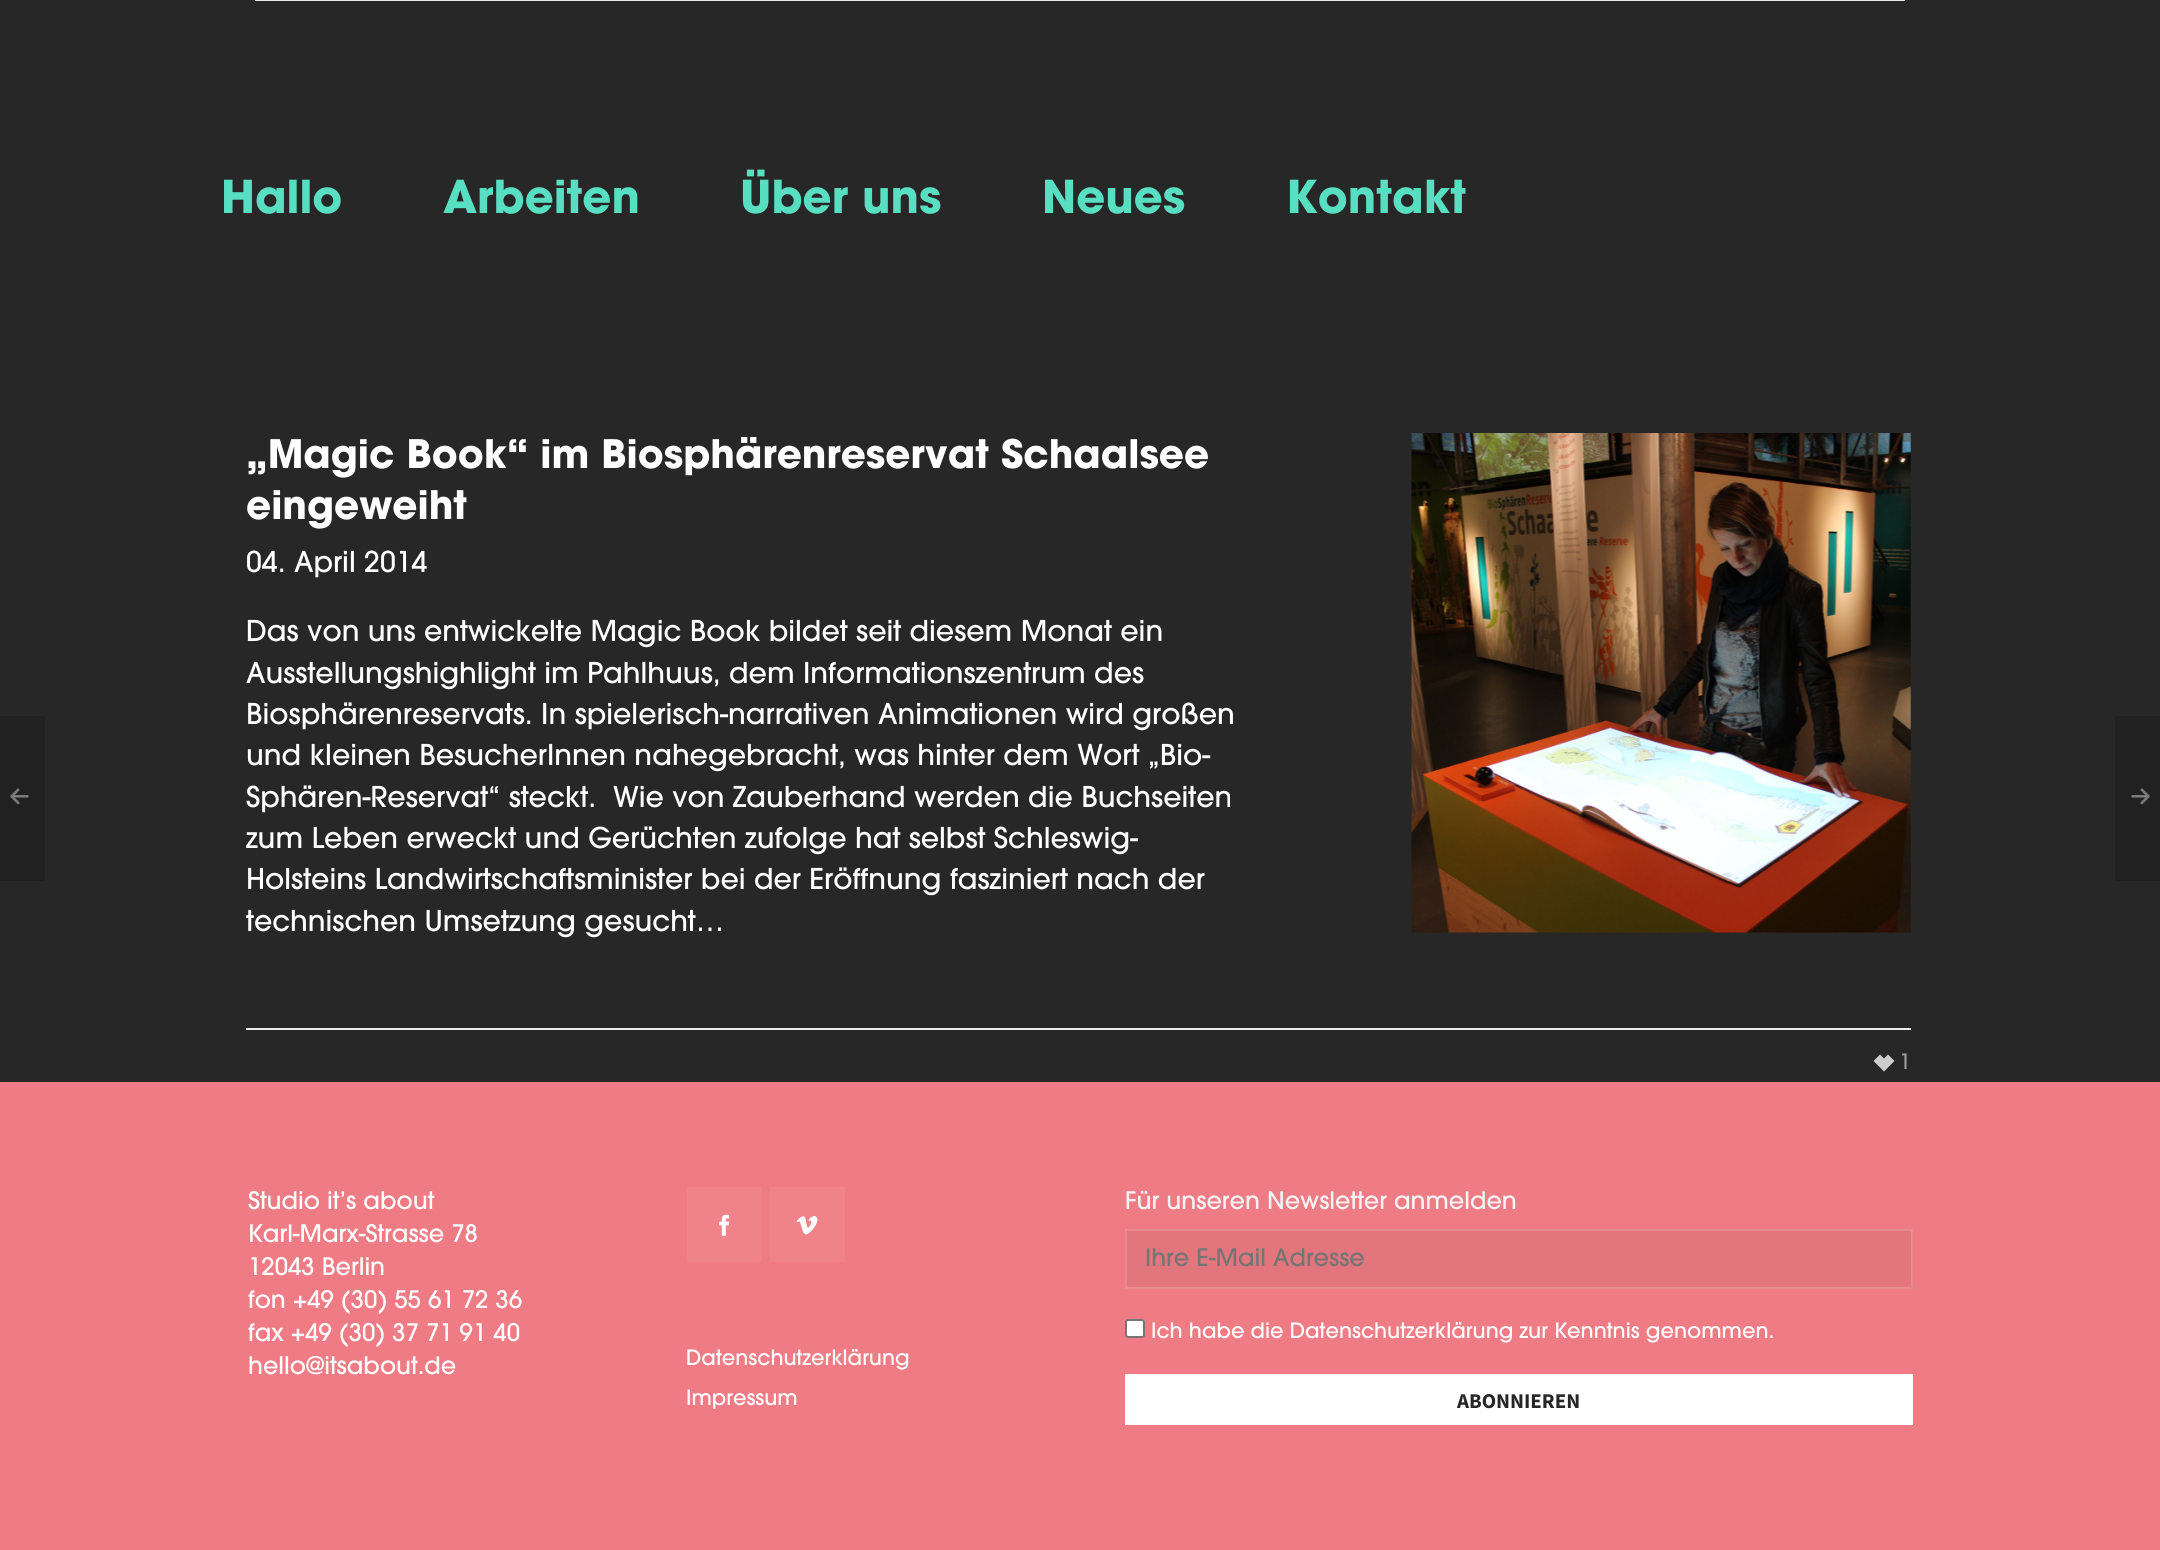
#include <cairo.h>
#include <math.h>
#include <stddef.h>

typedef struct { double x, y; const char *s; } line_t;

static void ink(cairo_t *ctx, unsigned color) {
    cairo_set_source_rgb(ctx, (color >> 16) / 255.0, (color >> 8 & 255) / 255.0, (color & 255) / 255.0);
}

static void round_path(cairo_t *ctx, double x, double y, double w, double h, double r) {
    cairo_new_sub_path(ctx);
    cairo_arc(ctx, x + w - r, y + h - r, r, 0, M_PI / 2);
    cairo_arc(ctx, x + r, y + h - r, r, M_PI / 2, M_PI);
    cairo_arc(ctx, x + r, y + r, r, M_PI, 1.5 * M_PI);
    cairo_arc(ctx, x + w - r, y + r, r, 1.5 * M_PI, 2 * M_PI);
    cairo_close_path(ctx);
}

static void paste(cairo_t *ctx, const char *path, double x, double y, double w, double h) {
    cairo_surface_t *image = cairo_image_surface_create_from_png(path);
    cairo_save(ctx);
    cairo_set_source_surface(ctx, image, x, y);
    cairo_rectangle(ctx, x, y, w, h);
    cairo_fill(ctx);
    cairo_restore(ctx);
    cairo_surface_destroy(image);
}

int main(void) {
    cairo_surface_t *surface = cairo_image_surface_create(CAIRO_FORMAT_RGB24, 2160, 1550);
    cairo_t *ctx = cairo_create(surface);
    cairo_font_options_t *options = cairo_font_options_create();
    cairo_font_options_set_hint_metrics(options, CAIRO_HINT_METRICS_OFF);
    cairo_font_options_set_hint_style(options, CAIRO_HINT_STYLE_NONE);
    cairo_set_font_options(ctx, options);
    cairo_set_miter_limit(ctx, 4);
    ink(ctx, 0x282727);
    cairo_paint(ctx);
    ink(ctx, 0xEBEBEB);
    cairo_rectangle(ctx, 255, 0, 1650, 1);
    cairo_fill(ctx);
    cairo_select_font_face(ctx, "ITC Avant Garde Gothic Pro", CAIRO_FONT_SLANT_NORMAL, CAIRO_FONT_WEIGHT_BOLD);
    cairo_set_font_size(ctx, 45);
    ink(ctx, 0x58DFC1);
    {
        static const line_t items[] = {
            {221, 213, "Hallo"},
            {443, 213, "Arbeiten"},
            {740, 213, "Über uns"},
            {1042, 213, "Neues"},
            {1286, 213, "Kontakt"},
        };
        for (size_t i = 0; i < sizeof items / sizeof *items; i++) {
            cairo_move_to(ctx, items[i].x, items[i].y);
            cairo_show_text(ctx, items[i].s);
        }
    }
    cairo_set_font_size(ctx, 39);
    ink(ctx, 0xFFFFFF);
    cairo_move_to(ctx, 246, 468);
    cairo_show_text(ctx, "„Magic Book“ im Biosphärenreservat Schaalsee");
    cairo_move_to(ctx, 246, 519);
    cairo_show_text(ctx, "eingeweiht");
    cairo_select_font_face(ctx, "ITC Avant Garde Gothic Pro Medium", CAIRO_FONT_SLANT_NORMAL, CAIRO_FONT_WEIGHT_NORMAL);
    cairo_set_font_size(ctx, 28.5);
    {
        static const line_t items[] = {
            {246, 572, "04. April 2014"},
            {246, 641, "Das von uns entwickelte Magic Book bildet seit diesem Monat ein"},
            {246, 683, "Ausstellungshighlight im Pahlhuus, dem Informationszentrum des"},
            {246, 724, "Biosphärenreservats. In spielerisch-narrativen Animationen wird großen"},
            {246, 765, "und kleinen BesucherInnen nahegebracht, was hinter dem Wort „Bio-"},
            {246, 807, "Sphären-Reservat“ steckt.  Wie von Zauberhand werden die Buchseiten"},
            {246, 848, "zum Leben erweckt und Gerüchten zufolge hat selbst Schleswig-"},
            {246, 889, "Holsteins Landwirtschaftsminister bei der Eröffnung fasziniert nach der"},
            {246, 931, "technischen Umsetzung gesucht…"},
        };
        for (size_t i = 0; i < sizeof items / sizeof *items; i++) {
            cairo_move_to(ctx, items[i].x, items[i].y);
            cairo_show_text(ctx, items[i].s);
        }
    }
    paste(ctx, "media/1.png", 1411, 433, 500, 500);
    ink(ctx, 0xEBEBEB);
    cairo_rectangle(ctx, 246, 1028, 1665, 2);
    cairo_fill(ctx);
    ink(ctx, 0xCDCDCD);
    cairo_new_path(ctx);
    cairo_move_to(ctx, 1888, 1054.5);
    cairo_line_to(ctx, 1884, 1058.5);
    cairo_line_to(ctx, 1880, 1054.5);
    cairo_line_to(ctx, 1873.5, 1061);
    cairo_line_to(ctx, 1884, 1071.5);
    cairo_line_to(ctx, 1894.5, 1061);
    cairo_close_path(ctx);
    cairo_fill(ctx);
    cairo_set_font_size(ctx, 21);
    ink(ctx, 0x999999);
    cairo_move_to(ctx, 1899, 1069);
    cairo_show_text(ctx, "1");
    ink(ctx, 0x222121);
    cairo_rectangle(ctx, 0, 716, 45, 165);
    cairo_fill(ctx);
    paste(ctx, "media/2.png", 10, 788, 19, 17);
    cairo_rectangle(ctx, 2115, 716, 45, 165);
    cairo_fill(ctx);
    paste(ctx, "media/3.png", 2131, 788, 19, 17);
    ink(ctx, 0xEF7B84);
    cairo_rectangle(ctx, 0, 1082, 2160, 468);
    cairo_fill(ctx);
    cairo_set_font_size(ctx, 24);
    ink(ctx, 0xFFFFFF);
    {
        static const line_t items[] = {
            {248, 1209, "Studio it’s about"},
            {248, 1242, "Karl-Marx-Strasse 78"},
            {248, 1275, "12043 Berlin"},
            {248, 1308, "fon +49 (30) 55 61 72 36"},
            {248, 1341, "fax +49 (30) 37 71 91 40"},
            {248, 1374, "hello@itsabout.de"},
        };
        for (size_t i = 0; i < sizeof items / sizeof *items; i++) {
            cairo_move_to(ctx, items[i].x, items[i].y);
            cairo_show_text(ctx, items[i].s);
        }
    }
    ink(ctx, 0xF0828A);
    cairo_rectangle(ctx, 687, 1187, 75, 75);
    cairo_fill(ctx);
    paste(ctx, "media/4.png", 719, 1214, 11, 22);
    cairo_rectangle(ctx, 770, 1187, 75, 75);
    cairo_fill(ctx);
    paste(ctx, "media/5.png", 796, 1216, 22, 19);
    cairo_set_font_size(ctx, 21);
    ink(ctx, 0xFFFFFF);
    cairo_move_to(ctx, 686, 1365);
    cairo_show_text(ctx, "Datenschutzerklärung");
    cairo_move_to(ctx, 686, 1405);
    cairo_show_text(ctx, "Impressum");
    cairo_set_font_size(ctx, 24);
    ink(ctx, 0xF4F4F4);
    cairo_move_to(ctx, 1125, 1209);
    cairo_show_text(ctx, "Für unseren Newsletter anmelden");
    ink(ctx, 0xE3757D);
    cairo_rectangle(ctx, 1126, 1230, 786, 58);
    cairo_fill_preserve(ctx);
    ink(ctx, 0xE78A91);
    cairo_stroke(ctx);
    ink(ctx, 0x757575);
    cairo_move_to(ctx, 1145, 1266);
    cairo_show_text(ctx, "Ihre E-Mail Adresse");
    ink(ctx, 0xFFFFFF);
    round_path(ctx, 1126, 1320, 18, 17, 2);
    cairo_fill_preserve(ctx);
    ink(ctx, 0x767676);
    cairo_stroke(ctx);
    cairo_set_font_size(ctx, 21);
    ink(ctx, 0xFFFFFF);
    cairo_move_to(ctx, 1151, 1338);
    cairo_show_text(ctx, "Ich habe die Datenschutzerklärung zur Kenntnis genommen.");
    cairo_rectangle(ctx, 1125, 1374, 788, 51);
    cairo_fill(ctx);
    cairo_select_font_face(ctx, "Source Sans Pro", CAIRO_FONT_SLANT_NORMAL, CAIRO_FONT_WEIGHT_BOLD);
    ink(ctx, 0x282727);
    cairo_move_to(ctx, 1457, 1408);
    cairo_show_text(ctx, "ABONNIEREN");
    cairo_surface_write_to_png(surface, "image.png");
    cairo_font_options_destroy(options);
    cairo_destroy(ctx);
    cairo_surface_destroy(surface);
    return 0;
}
